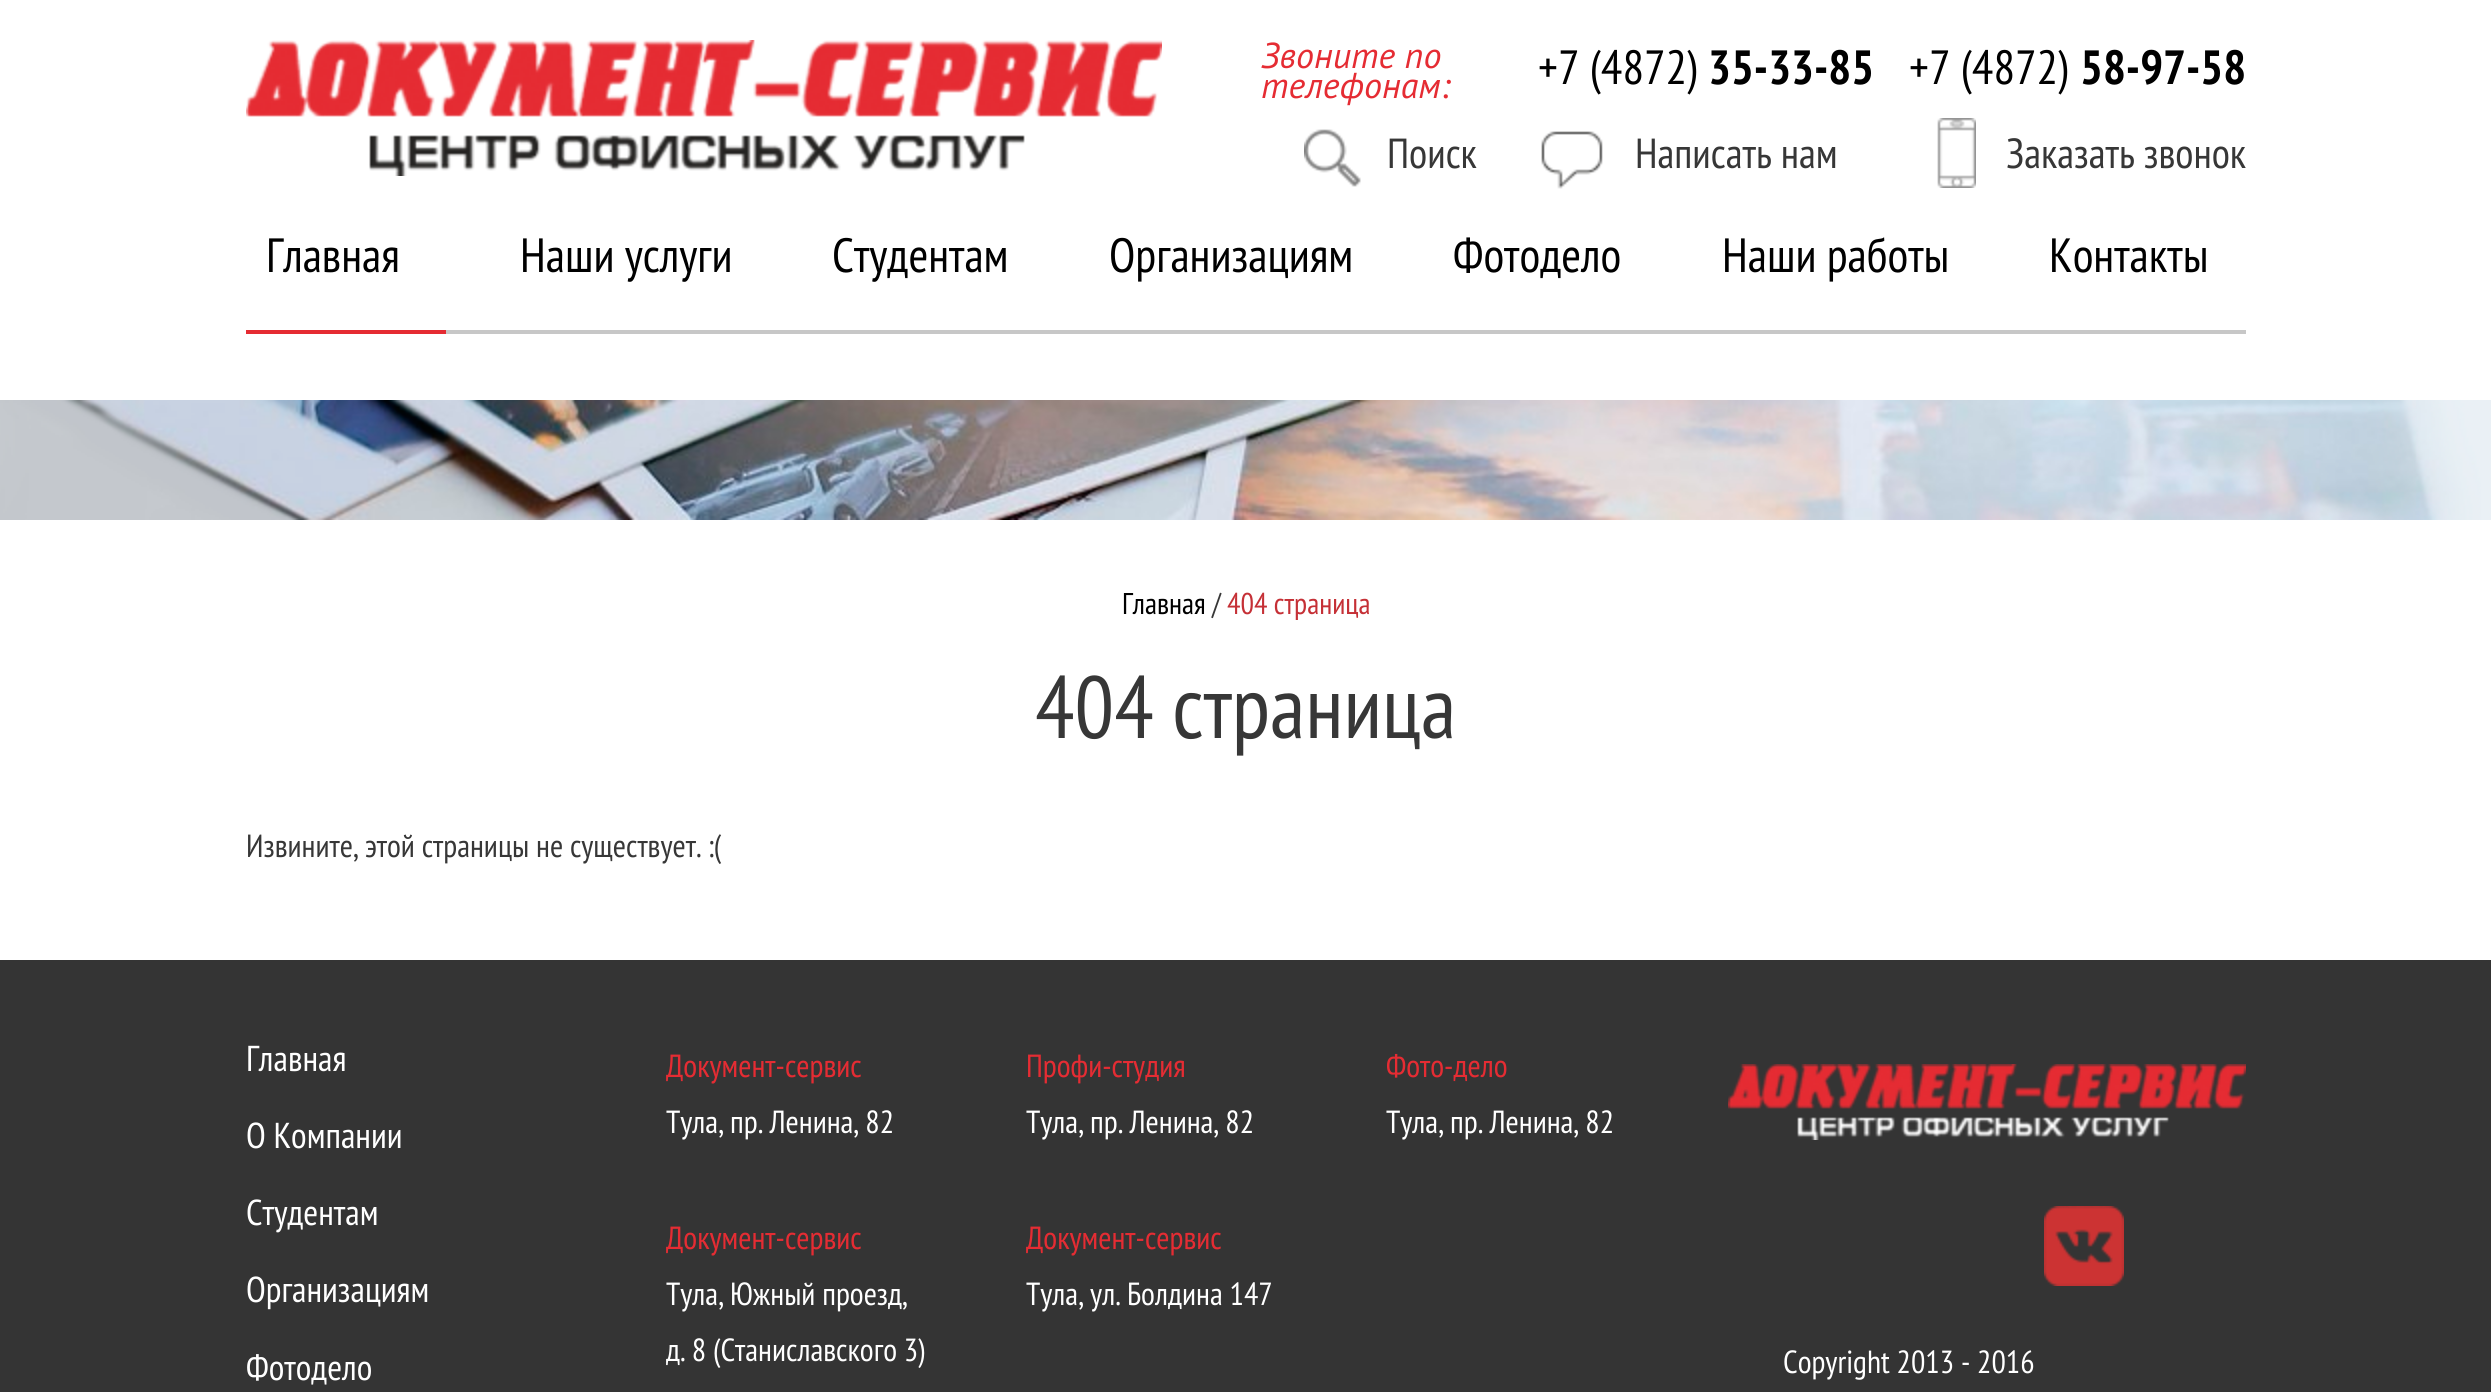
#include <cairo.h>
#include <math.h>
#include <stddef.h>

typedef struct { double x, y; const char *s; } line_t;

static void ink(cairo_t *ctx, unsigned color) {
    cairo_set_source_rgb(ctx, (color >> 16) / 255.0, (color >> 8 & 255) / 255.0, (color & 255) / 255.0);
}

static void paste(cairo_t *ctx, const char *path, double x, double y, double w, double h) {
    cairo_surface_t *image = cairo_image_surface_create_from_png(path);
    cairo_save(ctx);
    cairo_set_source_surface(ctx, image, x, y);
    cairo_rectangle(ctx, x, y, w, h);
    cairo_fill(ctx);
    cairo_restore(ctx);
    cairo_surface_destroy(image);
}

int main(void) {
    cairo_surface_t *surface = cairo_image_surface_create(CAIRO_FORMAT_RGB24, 2491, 1392);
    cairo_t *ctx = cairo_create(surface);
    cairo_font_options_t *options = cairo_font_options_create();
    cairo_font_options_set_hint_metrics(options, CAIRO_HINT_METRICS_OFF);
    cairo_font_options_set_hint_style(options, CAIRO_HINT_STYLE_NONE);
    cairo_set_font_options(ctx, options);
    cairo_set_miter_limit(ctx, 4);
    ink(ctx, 0xFFFFFF);
    cairo_paint(ctx);
    paste(ctx, "media/1.png", 246, 40, 916, 136);
    cairo_select_font_face(ctx, "PT Sans", CAIRO_FONT_SLANT_ITALIC, CAIRO_FONT_WEIGHT_NORMAL);
    cairo_set_font_size(ctx, 36);
    ink(ctx, 0xE52C33);
    cairo_move_to(ctx, 1261, 68);
    cairo_show_text(ctx, "Звоните по");
    cairo_move_to(ctx, 1261, 98);
    cairo_show_text(ctx, "телефонам:");
    cairo_select_font_face(ctx, "PT Sans Narrow", CAIRO_FONT_SLANT_NORMAL, CAIRO_FONT_WEIGHT_NORMAL);
    cairo_set_font_size(ctx, 48);
    ink(ctx, 0x000000);
    cairo_move_to(ctx, 1538, 84);
    cairo_show_text(ctx, "+7 (4872)");
    cairo_select_font_face(ctx, "PT Sans Narrow", CAIRO_FONT_SLANT_NORMAL, CAIRO_FONT_WEIGHT_BOLD);
    cairo_move_to(ctx, 1708, 84);
    cairo_show_text(ctx, "35-33-85");
    cairo_select_font_face(ctx, "PT Sans Narrow", CAIRO_FONT_SLANT_NORMAL, CAIRO_FONT_WEIGHT_NORMAL);
    cairo_move_to(ctx, 1909, 84);
    cairo_show_text(ctx, "+7 (4872)");
    cairo_select_font_face(ctx, "PT Sans Narrow", CAIRO_FONT_SLANT_NORMAL, CAIRO_FONT_WEIGHT_BOLD);
    cairo_move_to(ctx, 2080, 84);
    cairo_show_text(ctx, "58-97-58");
    paste(ctx, "media/2.png", 1304, 129, 57, 58);
    cairo_select_font_face(ctx, "PT Sans Narrow", CAIRO_FONT_SLANT_NORMAL, CAIRO_FONT_WEIGHT_NORMAL);
    cairo_set_font_size(ctx, 42);
    ink(ctx, 0x373737);
    cairo_move_to(ctx, 1387, 168);
    cairo_show_text(ctx, "Поиск");
    paste(ctx, "media/3.png", 1541, 131, 62, 58);
    cairo_move_to(ctx, 1635, 168);
    cairo_show_text(ctx, "Написать нам");
    paste(ctx, "media/4.png", 1937, 118, 39, 70);
    cairo_move_to(ctx, 2006, 168);
    cairo_show_text(ctx, "Заказать звонок");
    ink(ctx, 0xC7C7C7);
    cairo_rectangle(ctx, 446, 330, 1800, 4);
    cairo_fill(ctx);
    cairo_set_font_size(ctx, 48);
    ink(ctx, 0x000000);
    {
        static const line_t items[] = {
            {266, 272, "Главная"},
            {520, 272, "Наши услуги"},
            {832, 272, "Студентам"},
            {1109, 272, "Организациям"},
            {1453, 272, "Фотодело"},
            {1722, 272, "Наши работы"},
            {2049, 272, "Контакты"},
        };
        for (size_t i = 0; i < sizeof items / sizeof *items; i++) {
            cairo_move_to(ctx, items[i].x, items[i].y);
            cairo_show_text(ctx, items[i].s);
        }
    }
    ink(ctx, 0xE52B32);
    cairo_rectangle(ctx, 246, 330, 200, 4);
    cairo_fill(ctx);
    paste(ctx, "media/5.png", 0, 400, 2491, 120);
    cairo_set_font_size(ctx, 30);
    ink(ctx, 0x000000);
    cairo_move_to(ctx, 1122, 614);
    cairo_show_text(ctx, "Главная");
    ink(ctx, 0x373737);
    cairo_move_to(ctx, 1212, 614);
    cairo_show_text(ctx, "/");
    ink(ctx, 0xC53036);
    cairo_move_to(ctx, 1227, 614);
    cairo_show_text(ctx, "404 страница");
    cairo_set_font_size(ctx, 88);
    ink(ctx, 0x373737);
    cairo_move_to(ctx, 1035, 738);
    cairo_show_text(ctx, "404 страница");
    cairo_set_font_size(ctx, 32);
    cairo_move_to(ctx, 246, 857);
    cairo_show_text(ctx, "Извините, этой страницы не существует. :(");
    ink(ctx, 0x343434);
    cairo_rectangle(ctx, 0, 960, 2491, 432);
    cairo_fill(ctx);
    cairo_set_font_size(ctx, 36);
    ink(ctx, 0xFFFFFF);
    {
        static const line_t items[] = {
            {246, 1071, "Главная"},
            {246, 1148, "О Компании"},
            {246, 1225, "Студентам"},
            {246, 1302, "Организациям"},
            {246, 1380, "Фотодело"},
        };
        for (size_t i = 0; i < sizeof items / sizeof *items; i++) {
            cairo_move_to(ctx, items[i].x, items[i].y);
            cairo_show_text(ctx, items[i].s);
        }
    }
    cairo_set_font_size(ctx, 32);
    ink(ctx, 0xE52C33);
    cairo_move_to(ctx, 666, 1077);
    cairo_show_text(ctx, "Документ-сервис");
    ink(ctx, 0xFFFFFF);
    cairo_move_to(ctx, 666, 1133);
    cairo_show_text(ctx, "Тула, пр. Ленина, 82");
    ink(ctx, 0xE52C33);
    cairo_move_to(ctx, 1026, 1077);
    cairo_show_text(ctx, "Профи-студия");
    ink(ctx, 0xFFFFFF);
    cairo_move_to(ctx, 1026, 1133);
    cairo_show_text(ctx, "Тула, пр. Ленина, 82");
    ink(ctx, 0xE52C33);
    cairo_move_to(ctx, 1386, 1077);
    cairo_show_text(ctx, "Фото-дело");
    ink(ctx, 0xFFFFFF);
    cairo_move_to(ctx, 1386, 1133);
    cairo_show_text(ctx, "Тула, пр. Ленина, 82");
    ink(ctx, 0xE52C33);
    cairo_move_to(ctx, 666, 1249);
    cairo_show_text(ctx, "Документ-сервис");
    ink(ctx, 0xFFFFFF);
    cairo_move_to(ctx, 666, 1305);
    cairo_show_text(ctx, "Тула, Южный проезд,");
    cairo_move_to(ctx, 666, 1361);
    cairo_show_text(ctx, "д. 8 (Станиславского 3)");
    ink(ctx, 0xE52C33);
    cairo_move_to(ctx, 1026, 1249);
    cairo_show_text(ctx, "Документ-сервис");
    ink(ctx, 0xFFFFFF);
    cairo_move_to(ctx, 1026, 1305);
    cairo_show_text(ctx, "Тула, ул. Болдина 147");
    paste(ctx, "media/6.png", 1728, 1064, 518, 76);
    paste(ctx, "media/7.png", 2044, 1206, 80, 80);
    cairo_move_to(ctx, 1783, 1373);
    cairo_show_text(ctx, "Copyright 2013 - 2016");
    cairo_surface_write_to_png(surface, "image.png");
    cairo_font_options_destroy(options);
    cairo_destroy(ctx);
    cairo_surface_destroy(surface);
    return 0;
}
